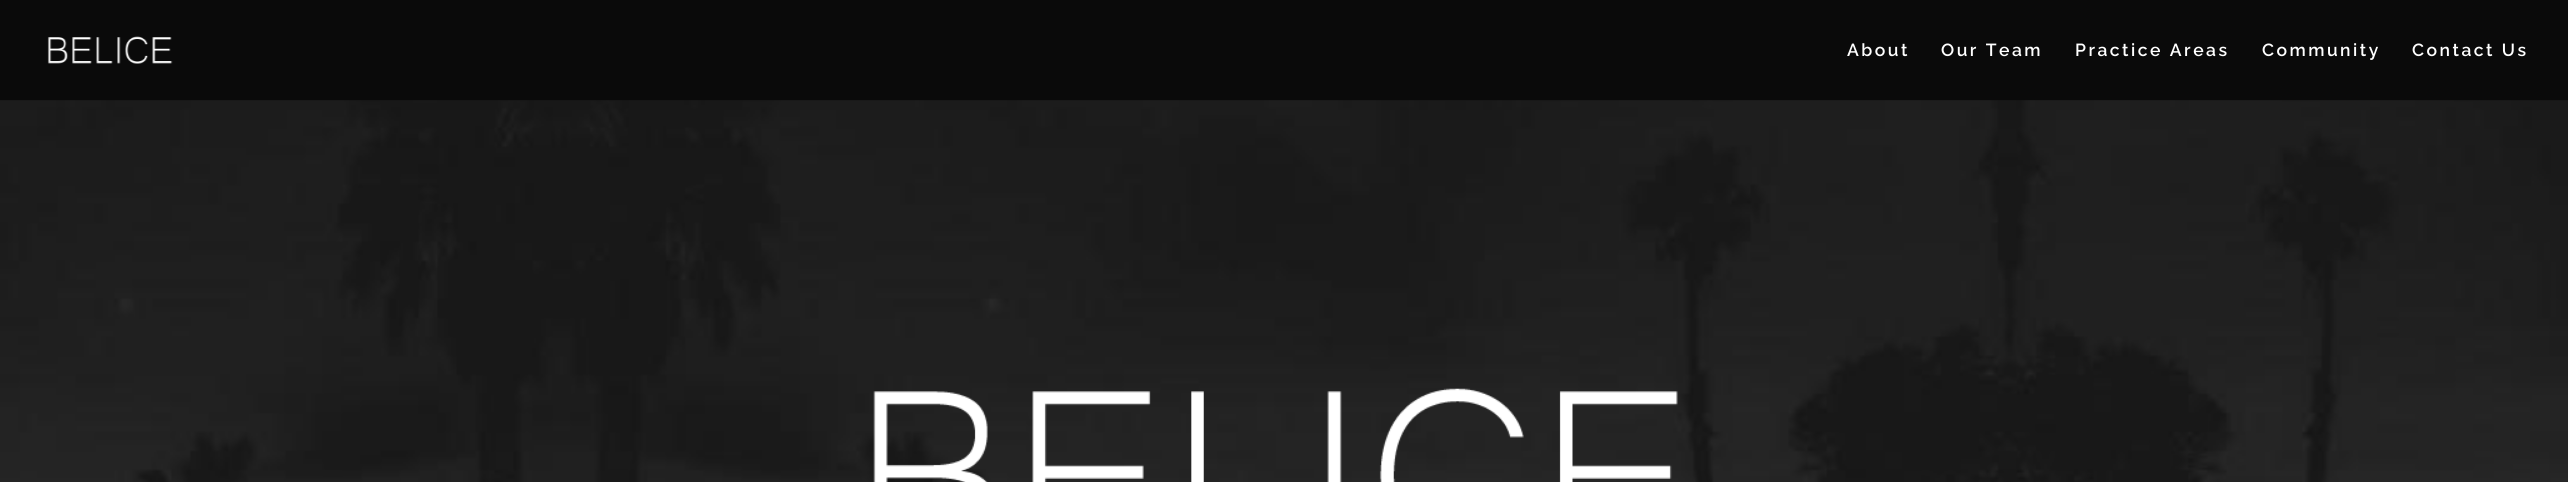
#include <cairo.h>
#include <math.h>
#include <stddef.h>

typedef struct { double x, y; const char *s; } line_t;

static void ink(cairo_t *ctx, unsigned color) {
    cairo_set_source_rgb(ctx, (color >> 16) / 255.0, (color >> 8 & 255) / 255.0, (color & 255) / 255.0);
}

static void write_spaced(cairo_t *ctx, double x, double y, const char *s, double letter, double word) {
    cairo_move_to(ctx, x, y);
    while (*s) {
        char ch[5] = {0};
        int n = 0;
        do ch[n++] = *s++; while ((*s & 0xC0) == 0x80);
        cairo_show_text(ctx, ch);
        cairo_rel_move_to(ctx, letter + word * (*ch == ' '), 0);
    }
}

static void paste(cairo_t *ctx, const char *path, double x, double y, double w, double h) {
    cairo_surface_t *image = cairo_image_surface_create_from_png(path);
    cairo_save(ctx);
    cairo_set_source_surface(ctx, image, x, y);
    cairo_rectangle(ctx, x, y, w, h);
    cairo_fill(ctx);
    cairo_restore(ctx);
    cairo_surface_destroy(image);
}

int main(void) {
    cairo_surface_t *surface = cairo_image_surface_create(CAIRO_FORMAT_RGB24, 2568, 482);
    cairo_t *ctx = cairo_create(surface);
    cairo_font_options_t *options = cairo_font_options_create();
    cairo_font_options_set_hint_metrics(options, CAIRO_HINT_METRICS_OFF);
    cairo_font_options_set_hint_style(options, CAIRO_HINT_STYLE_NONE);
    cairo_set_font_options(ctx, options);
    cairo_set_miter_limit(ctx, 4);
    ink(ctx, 0xFFFFFF);
    cairo_paint(ctx);
    paste(ctx, "media/2.png", 0, 100, 2568, 382);
    cairo_set_source_rgba(ctx, 0, 0, 0, 0.1);
    cairo_new_path(ctx);
    cairo_move_to(ctx, 0, 100);
    cairo_line_to(ctx, 0, 101);
    cairo_line_to(ctx, 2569, 101);
    cairo_line_to(ctx, 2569, 1);
    cairo_line_to(ctx, 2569, 100);
    cairo_close_path(ctx);
    cairo_fill(ctx);
    ink(ctx, 0x0A0A0A);
    cairo_rectangle(ctx, 0, 0, 2568, 100);
    cairo_fill(ctx);
    paste(ctx, "media/1.png", 47, 36, 126, 28);
    cairo_select_font_face(ctx, "Raleway SemiBold", CAIRO_FONT_SLANT_NORMAL, CAIRO_FONT_WEIGHT_NORMAL);
    cairo_set_font_size(ctx, 17.5);
    ink(ctx, 0xFFFFFF);
    {
        static const line_t items[] = {
            {1847, 56, "About"},
            {1941, 56, "Our Team"},
            {2075, 56, "Practice Areas"},
            {2262, 56, "Community"},
            {2412, 56, "Contact Us"},
        };
        for (size_t i = 0; i < sizeof items / sizeof *items; i++) {
            write_spaced(ctx, items[i].x, items[i].y, items[i].s, 2.5, 0);
        }
    }
    paste(ctx, "media/3.png", 873, 388, 805, 94);
    cairo_surface_write_to_png(surface, "image.png");
    cairo_font_options_destroy(options);
    cairo_destroy(ctx);
    cairo_surface_destroy(surface);
    return 0;
}
